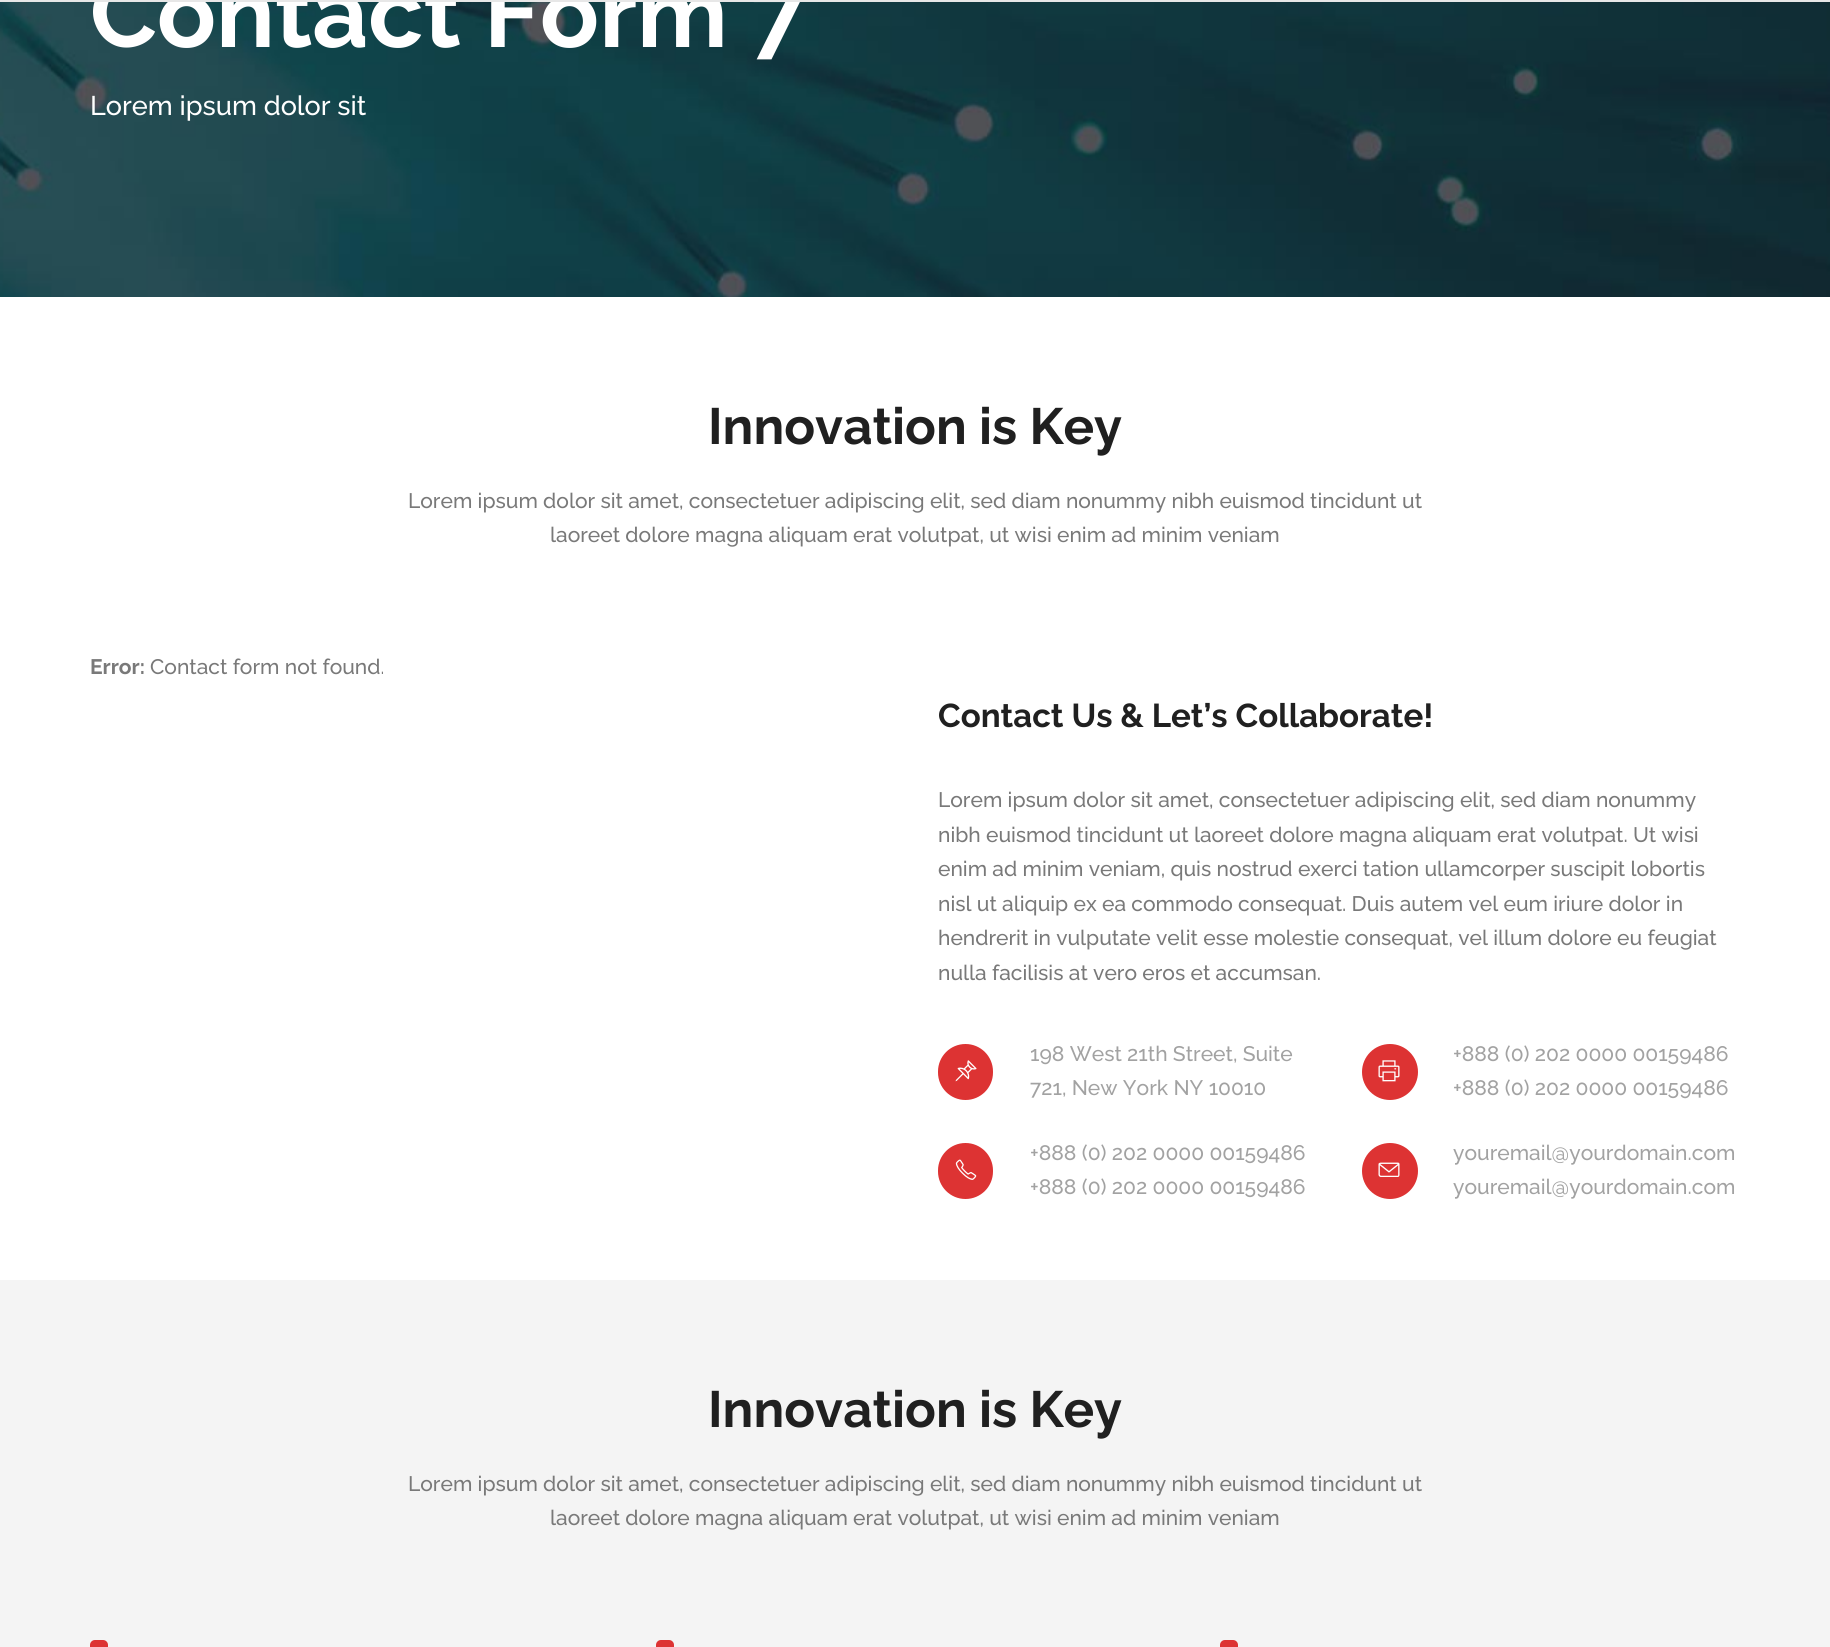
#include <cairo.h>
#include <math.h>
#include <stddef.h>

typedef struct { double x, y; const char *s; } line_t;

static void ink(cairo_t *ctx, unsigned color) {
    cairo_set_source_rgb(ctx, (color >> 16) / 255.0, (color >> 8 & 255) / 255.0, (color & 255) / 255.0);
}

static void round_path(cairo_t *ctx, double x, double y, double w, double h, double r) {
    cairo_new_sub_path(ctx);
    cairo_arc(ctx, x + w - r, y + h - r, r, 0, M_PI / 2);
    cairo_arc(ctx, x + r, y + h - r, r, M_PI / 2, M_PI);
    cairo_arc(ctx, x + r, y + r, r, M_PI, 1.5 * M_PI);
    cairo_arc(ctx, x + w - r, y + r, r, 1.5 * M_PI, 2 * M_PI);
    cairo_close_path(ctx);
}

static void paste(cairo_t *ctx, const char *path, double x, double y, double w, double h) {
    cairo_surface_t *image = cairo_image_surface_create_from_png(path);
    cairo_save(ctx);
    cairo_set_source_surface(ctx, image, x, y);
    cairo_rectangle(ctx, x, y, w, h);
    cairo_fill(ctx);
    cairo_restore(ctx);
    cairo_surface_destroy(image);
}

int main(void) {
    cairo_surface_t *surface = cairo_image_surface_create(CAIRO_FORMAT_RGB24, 1830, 1647);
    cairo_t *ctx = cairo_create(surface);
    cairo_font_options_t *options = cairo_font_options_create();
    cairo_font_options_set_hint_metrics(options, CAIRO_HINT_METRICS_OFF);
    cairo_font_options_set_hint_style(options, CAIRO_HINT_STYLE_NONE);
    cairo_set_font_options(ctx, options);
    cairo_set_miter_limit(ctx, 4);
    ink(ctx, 0xFFFFFF);
    cairo_paint(ctx);
    paste(ctx, "media/1.png", 0, 2, 1830, 295);
    cairo_select_font_face(ctx, "Raleway", CAIRO_FONT_SLANT_NORMAL, CAIRO_FONT_WEIGHT_BOLD);
    cairo_set_font_size(ctx, 97.5);
    ink(ctx, 0xFFFFFF);
    cairo_move_to(ctx, 90, 47);
    cairo_show_text(ctx, "Contact Form 7");
    ink(ctx, 0xE7E7E7);
    cairo_rectangle(ctx, 0, 0, 1830, 2);
    cairo_fill(ctx);
    cairo_select_font_face(ctx, "Raleway Medium", CAIRO_FONT_SLANT_NORMAL, CAIRO_FONT_WEIGHT_NORMAL);
    cairo_set_font_size(ctx, 27);
    ink(ctx, 0xFFFFFF);
    cairo_move_to(ctx, 90, 115);
    cairo_show_text(ctx, "Lorem ipsum dolor sit");
    cairo_select_font_face(ctx, "Raleway", CAIRO_FONT_SLANT_NORMAL, CAIRO_FONT_WEIGHT_BOLD);
    cairo_set_font_size(ctx, 51);
    ink(ctx, 0x202020);
    cairo_move_to(ctx, 708, 444);
    cairo_show_text(ctx, "Innovation is Key");
    cairo_select_font_face(ctx, "Raleway Medium", CAIRO_FONT_SLANT_NORMAL, CAIRO_FONT_WEIGHT_NORMAL);
    cairo_set_font_size(ctx, 21);
    ink(ctx, 0x797979);
    cairo_move_to(ctx, 408, 508);
    cairo_show_text(ctx, "Lorem ipsum dolor sit amet, consectetuer adipiscing elit, sed diam nonummy nibh euismod tincidunt ut");
    cairo_move_to(ctx, 550, 542);
    cairo_show_text(ctx, "laoreet dolore magna aliquam erat volutpat, ut wisi enim ad minim veniam");
    cairo_select_font_face(ctx, "Raleway", CAIRO_FONT_SLANT_NORMAL, CAIRO_FONT_WEIGHT_BOLD);
    cairo_move_to(ctx, 90, 674);
    cairo_show_text(ctx, "Error:");
    cairo_select_font_face(ctx, "Raleway Medium", CAIRO_FONT_SLANT_NORMAL, CAIRO_FONT_WEIGHT_NORMAL);
    cairo_move_to(ctx, 150, 674);
    cairo_show_text(ctx, "Contact form not found.");
    cairo_select_font_face(ctx, "Raleway", CAIRO_FONT_SLANT_NORMAL, CAIRO_FONT_WEIGHT_BOLD);
    cairo_set_font_size(ctx, 33);
    ink(ctx, 0x202020);
    cairo_move_to(ctx, 938, 727);
    cairo_show_text(ctx, "Contact Us & Let’s Collaborate!");
    cairo_select_font_face(ctx, "Raleway Medium", CAIRO_FONT_SLANT_NORMAL, CAIRO_FONT_WEIGHT_NORMAL);
    cairo_set_font_size(ctx, 21);
    ink(ctx, 0x797979);
    {
        static const line_t items[] = {
            {938, 807, "Lorem ipsum dolor sit amet, consectetuer adipiscing elit, sed diam nonummy"},
            {938, 842, "nibh euismod tincidunt ut laoreet dolore magna aliquam erat volutpat. Ut wisi"},
            {938, 876, "enim ad minim veniam, quis nostrud exerci tation ullamcorper suscipit lobortis"},
            {938, 911, "nisl ut aliquip ex ea commodo consequat. Duis autem vel eum iriure dolor in"},
            {938, 945, "hendrerit in vulputate velit esse molestie consequat, vel illum dolore eu feugiat"},
            {938, 980, "nulla facilisis at vero eros et accumsan."},
        };
        for (size_t i = 0; i < sizeof items / sizeof *items; i++) {
            cairo_move_to(ctx, items[i].x, items[i].y);
            cairo_show_text(ctx, items[i].s);
        }
    }
    ink(ctx, 0xDD3333);
    round_path(ctx, 938, 1044, 55, 56, 27.5);
    cairo_fill(ctx);
    paste(ctx, "media/2.png", 955, 1060, 22, 22);
    ink(ctx, 0xA2A2A2);
    cairo_move_to(ctx, 1030, 1061);
    cairo_show_text(ctx, "198 West 21th Street, Suite");
    cairo_move_to(ctx, 1030, 1095);
    cairo_show_text(ctx, "721, New York NY 10010");
    ink(ctx, 0xDD3333);
    round_path(ctx, 938, 1143, 55, 56, 27.5);
    cairo_fill(ctx);
    paste(ctx, "media/3.png", 955, 1159, 22, 21);
    ink(ctx, 0xA2A2A2);
    cairo_move_to(ctx, 1030, 1160);
    cairo_show_text(ctx, "+888 (0) 202 0000 00159486");
    cairo_move_to(ctx, 1030, 1194);
    cairo_show_text(ctx, "+888 (0) 202 0000 00159486");
    ink(ctx, 0xDD3333);
    cairo_new_path(ctx);
    cairo_arc(ctx, 1390, 1072, 28, 0, 2 * M_PI);
    cairo_fill(ctx);
    paste(ctx, "media/4.png", 1378, 1060, 22, 22);
    ink(ctx, 0xA2A2A2);
    cairo_move_to(ctx, 1453, 1061);
    cairo_show_text(ctx, "+888 (0) 202 0000 00159486");
    cairo_move_to(ctx, 1453, 1095);
    cairo_show_text(ctx, "+888 (0) 202 0000 00159486");
    ink(ctx, 0xDD3333);
    cairo_new_path(ctx);
    cairo_arc(ctx, 1390, 1171, 28, 0, 2 * M_PI);
    cairo_fill(ctx);
    paste(ctx, "media/5.png", 1378, 1162, 22, 15);
    ink(ctx, 0xA2A2A2);
    cairo_move_to(ctx, 1453, 1160);
    cairo_show_text(ctx, "youremail@yourdomain.com");
    cairo_move_to(ctx, 1453, 1194);
    cairo_show_text(ctx, "youremail@yourdomain.com");
    ink(ctx, 0xF4F4F4);
    cairo_rectangle(ctx, 0, 1280, 1830, 367);
    cairo_fill(ctx);
    cairo_select_font_face(ctx, "Raleway", CAIRO_FONT_SLANT_NORMAL, CAIRO_FONT_WEIGHT_BOLD);
    cairo_set_font_size(ctx, 51);
    ink(ctx, 0x202020);
    cairo_move_to(ctx, 708, 1427);
    cairo_show_text(ctx, "Innovation is Key");
    cairo_select_font_face(ctx, "Raleway Medium", CAIRO_FONT_SLANT_NORMAL, CAIRO_FONT_WEIGHT_NORMAL);
    cairo_set_font_size(ctx, 21);
    ink(ctx, 0x797979);
    cairo_move_to(ctx, 408, 1491);
    cairo_show_text(ctx, "Lorem ipsum dolor sit amet, consectetuer adipiscing elit, sed diam nonummy nibh euismod tincidunt ut");
    cairo_move_to(ctx, 550, 1525);
    cairo_show_text(ctx, "laoreet dolore magna aliquam erat volutpat, ut wisi enim ad minim veniam");
    ink(ctx, 0xDD3333);
    round_path(ctx, 90, 1640, 18, 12, 5);
    cairo_fill(ctx);
    round_path(ctx, 656, 1640, 18, 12, 5);
    cairo_fill(ctx);
    round_path(ctx, 1220, 1640, 18, 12, 5);
    cairo_fill(ctx);
    cairo_surface_write_to_png(surface, "image.png");
    cairo_font_options_destroy(options);
    cairo_destroy(ctx);
    cairo_surface_destroy(surface);
    return 0;
}
